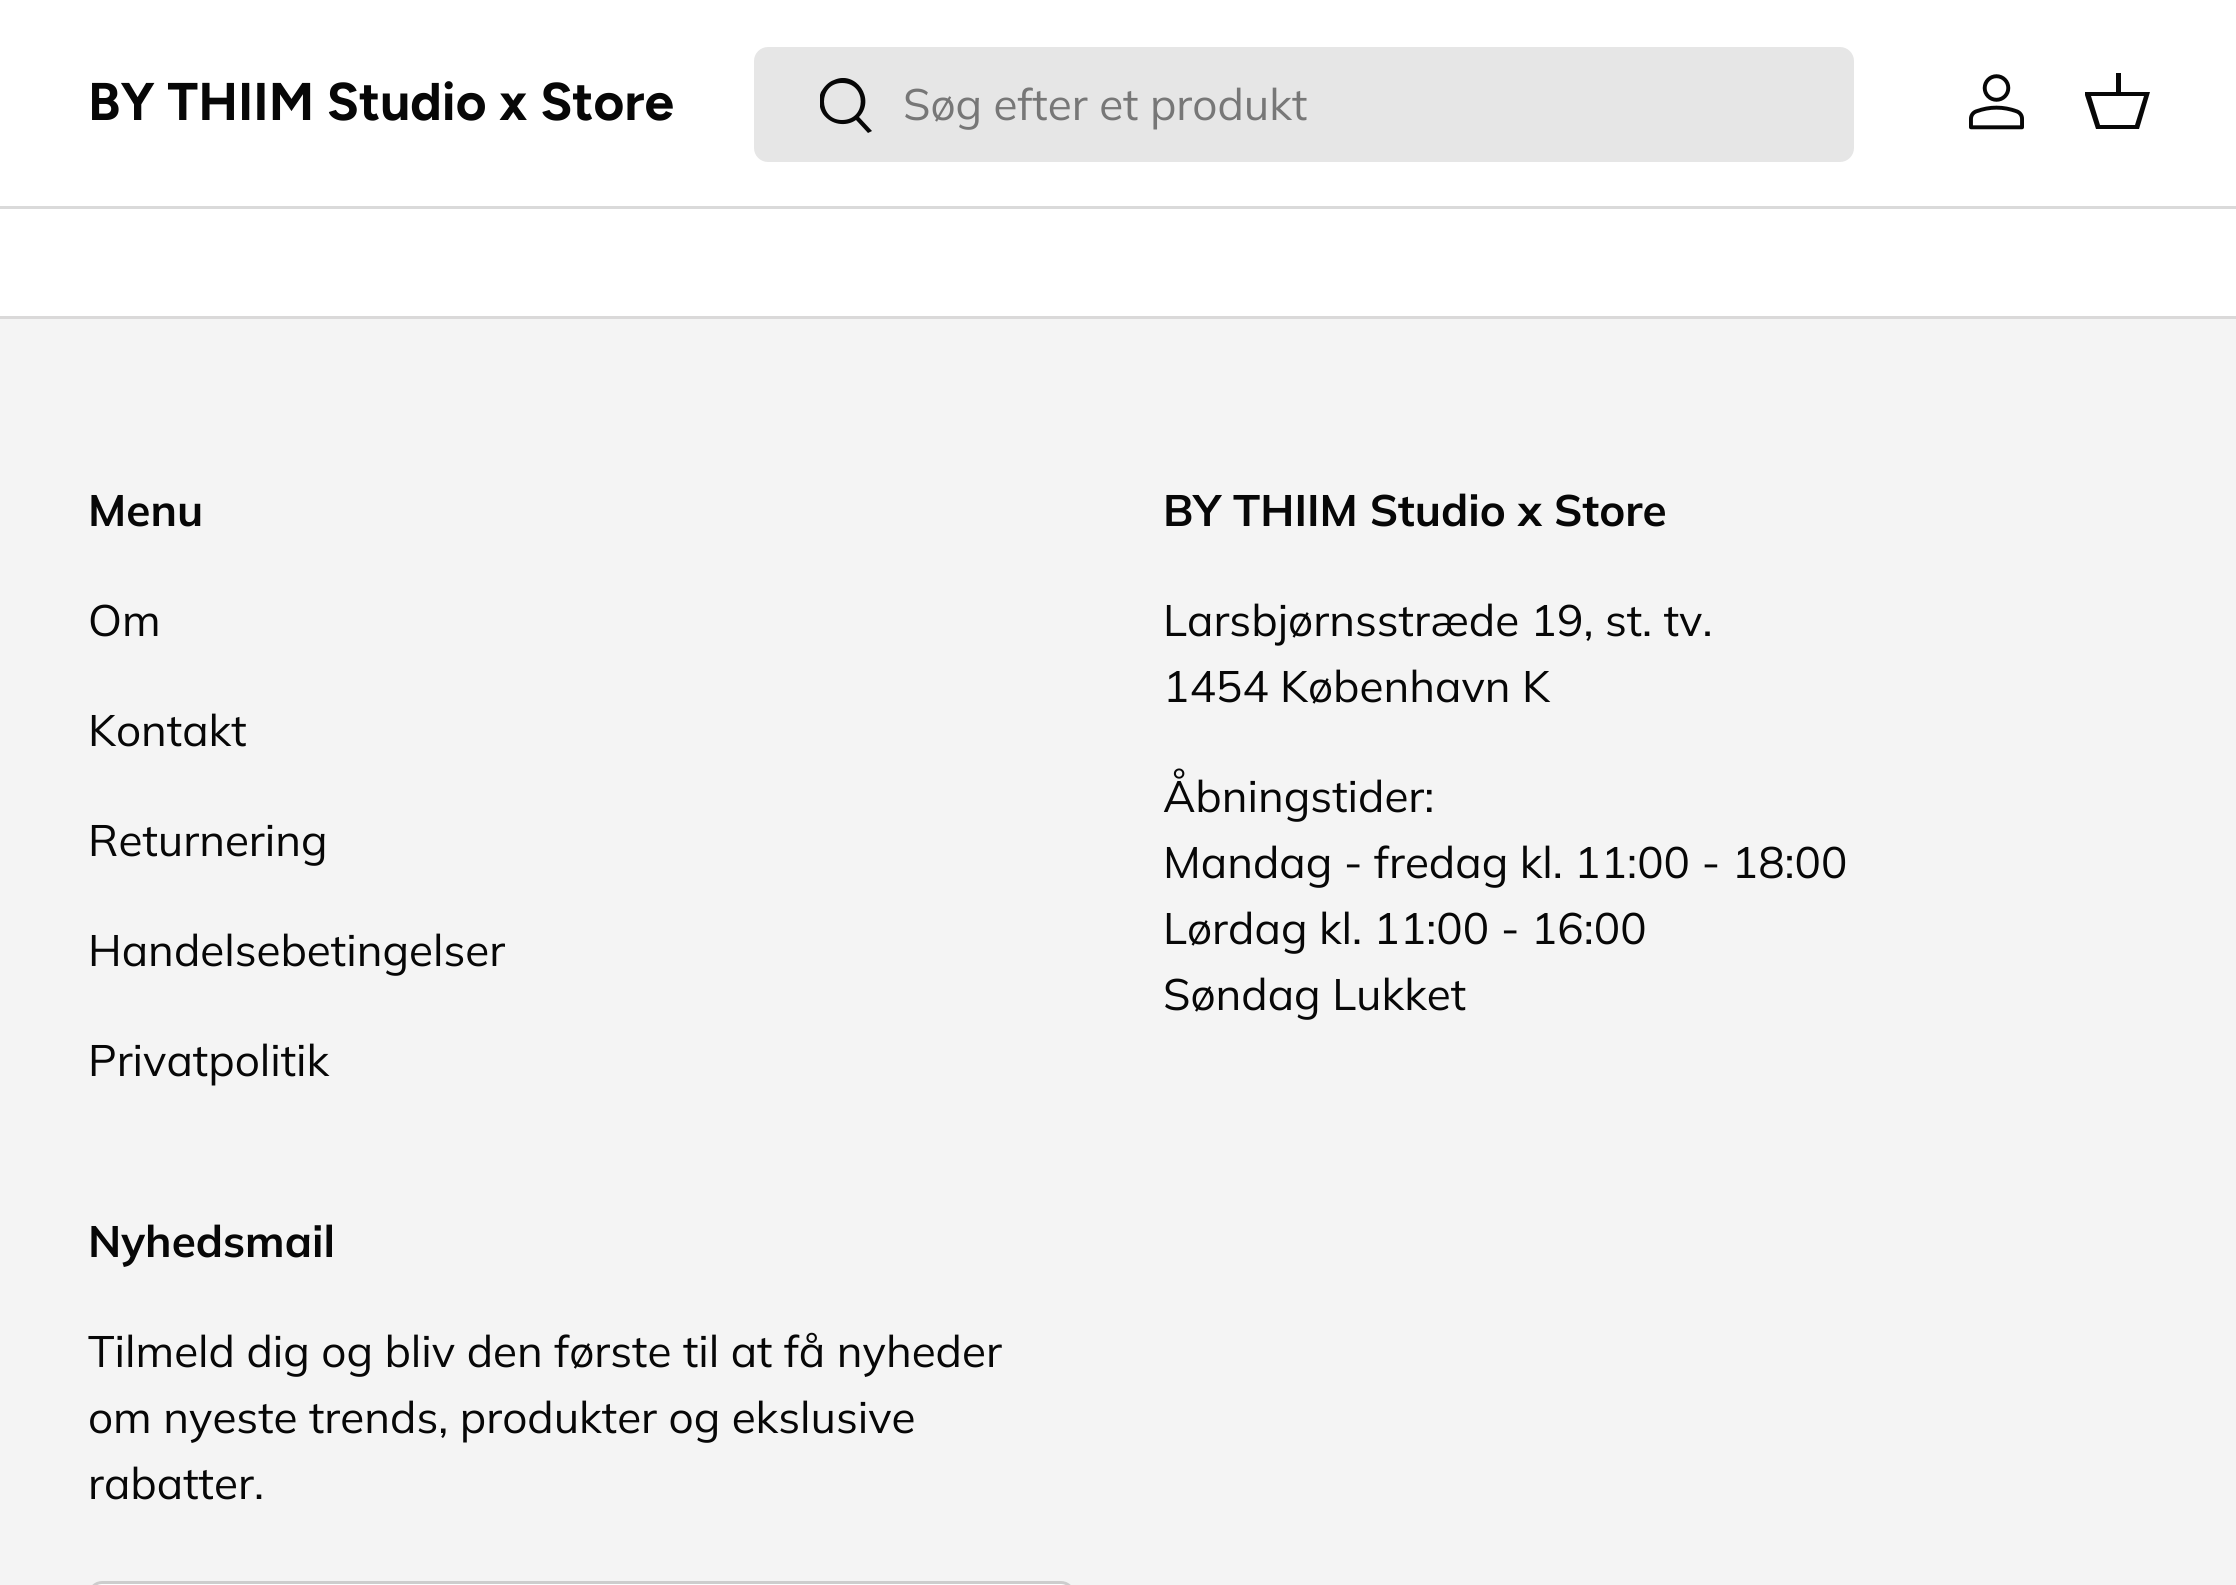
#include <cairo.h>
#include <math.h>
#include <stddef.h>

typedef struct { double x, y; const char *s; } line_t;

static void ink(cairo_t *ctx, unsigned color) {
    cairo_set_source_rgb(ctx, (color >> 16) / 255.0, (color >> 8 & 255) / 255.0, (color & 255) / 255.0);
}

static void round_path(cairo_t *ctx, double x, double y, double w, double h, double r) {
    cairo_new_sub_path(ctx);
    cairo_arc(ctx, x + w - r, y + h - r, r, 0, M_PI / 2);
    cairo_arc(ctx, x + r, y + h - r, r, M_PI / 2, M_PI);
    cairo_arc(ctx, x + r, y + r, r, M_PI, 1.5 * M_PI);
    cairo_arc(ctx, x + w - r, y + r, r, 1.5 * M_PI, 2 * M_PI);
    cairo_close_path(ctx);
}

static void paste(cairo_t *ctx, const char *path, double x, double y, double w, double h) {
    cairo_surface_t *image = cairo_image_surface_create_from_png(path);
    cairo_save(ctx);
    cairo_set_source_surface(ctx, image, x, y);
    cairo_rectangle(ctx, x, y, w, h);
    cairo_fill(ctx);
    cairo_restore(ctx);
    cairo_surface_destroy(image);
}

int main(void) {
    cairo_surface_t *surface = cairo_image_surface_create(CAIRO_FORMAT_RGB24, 2236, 1585);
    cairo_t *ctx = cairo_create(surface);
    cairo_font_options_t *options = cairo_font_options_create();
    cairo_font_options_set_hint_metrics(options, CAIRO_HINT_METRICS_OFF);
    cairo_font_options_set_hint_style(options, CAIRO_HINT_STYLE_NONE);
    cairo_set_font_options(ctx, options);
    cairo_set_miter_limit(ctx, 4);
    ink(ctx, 0xFFFFFF);
    cairo_paint(ctx);
    ink(ctx, 0xDADADA);
    cairo_rectangle(ctx, 0, 206, 2236, 3);
    cairo_fill(ctx);
    cairo_select_font_face(ctx, "Figtree", CAIRO_FONT_SLANT_NORMAL, CAIRO_FONT_WEIGHT_BOLD);
    cairo_set_font_size(ctx, 53);
    ink(ctx, 0x070707);
    cairo_move_to(ctx, 88, 120);
    cairo_show_text(ctx, "BY THIIM Studio x Store");
    ink(ctx, 0xE6E6E6);
    round_path(ctx, 754, 47, 1100, 115, 14);
    cairo_fill(ctx);
    cairo_save(ctx);
    cairo_rectangle(ctx, 820, 77, 57, 63);
    cairo_clip(ctx);
    ink(ctx, 0x070707);
    cairo_new_path(ctx);
    cairo_move_to(ctx, 859, 117);
    cairo_line_to(ctx, 872, 131);
    cairo_line_to(ctx, 868, 133);
    cairo_line_to(ctx, 856, 120);
    cairo_curve_to(ctx, 846, 127, 831, 125, 823, 114);
    cairo_curve_to(ctx, 819, 108, 818, 99, 821, 92);
    cairo_curve_to(ctx, 824, 87, 828, 82, 834, 80);
    cairo_curve_to(ctx, 856, 70, 876, 99, 859, 117);
    cairo_close_path(ctx);
    cairo_move_to(ctx, 842, 120);
    cairo_curve_to(ctx, 867, 120, 867, 83, 842, 83);
    cairo_curve_to(ctx, 818, 83, 818, 120, 842, 120);
    cairo_close_path(ctx);
    cairo_fill(ctx);
    cairo_restore(ctx);
    cairo_select_font_face(ctx, "Muli", CAIRO_FONT_SLANT_NORMAL, CAIRO_FONT_WEIGHT_NORMAL);
    cairo_set_font_size(ctx, 44);
    ink(ctx, 0x777777);
    cairo_move_to(ctx, 903, 120);
    cairo_show_text(ctx, "Søg efter et produkt");
    paste(ctx, "media/1.png", 1969, 74, 55, 56);
    cairo_save(ctx);
    cairo_rectangle(ctx, 2085, 69, 66, 66);
    cairo_clip(ctx);
    ink(ctx, 0x070707);
    cairo_new_path(ctx);
    cairo_move_to(ctx, 2116, 92);
    cairo_line_to(ctx, 2116, 73);
    cairo_line_to(ctx, 2121, 73);
    cairo_line_to(ctx, 2121, 92);
    cairo_line_to(ctx, 2150, 92);
    cairo_line_to(ctx, 2139, 129);
    cairo_line_to(ctx, 2096, 129);
    cairo_line_to(ctx, 2084, 92);
    cairo_close_path(ctx);
    cairo_move_to(ctx, 2091, 96);
    cairo_line_to(ctx, 2100, 125);
    cairo_line_to(ctx, 2135, 125);
    cairo_line_to(ctx, 2144, 96);
    cairo_close_path(ctx);
    cairo_fill(ctx);
    cairo_restore(ctx);
    ink(ctx, 0xDAD9D9);
    cairo_rectangle(ctx, 0, 316, 2236, 3);
    cairo_fill(ctx);
    ink(ctx, 0xF4F4F4);
    cairo_rectangle(ctx, 0, 319, 2236, 1266);
    cairo_fill(ctx);
    cairo_select_font_face(ctx, "Muli", CAIRO_FONT_SLANT_NORMAL, CAIRO_FONT_WEIGHT_BOLD);
    ink(ctx, 0x070707);
    cairo_move_to(ctx, 88, 526);
    cairo_show_text(ctx, "Menu");
    cairo_select_font_face(ctx, "Muli", CAIRO_FONT_SLANT_NORMAL, CAIRO_FONT_WEIGHT_NORMAL);
    {
        static const line_t items[] = {
            {88, 636, "Om"},
            {88, 746, "Kontakt"},
            {88, 856, "Returnering"},
            {88, 966, "Handelsebetingelser"},
            {88, 1076, "Privatpolitik"},
        };
        for (size_t i = 0; i < sizeof items / sizeof *items; i++) {
            cairo_move_to(ctx, items[i].x, items[i].y);
            cairo_show_text(ctx, items[i].s);
        }
    }
    cairo_select_font_face(ctx, "Muli", CAIRO_FONT_SLANT_NORMAL, CAIRO_FONT_WEIGHT_BOLD);
    cairo_move_to(ctx, 1163, 526);
    cairo_show_text(ctx, "BY THIIM Studio x Store");
    cairo_select_font_face(ctx, "Muli", CAIRO_FONT_SLANT_NORMAL, CAIRO_FONT_WEIGHT_NORMAL);
    {
        static const line_t items[] = {
            {1163, 636, "Larsbjørnsstræde 19, st. tv."},
            {1163, 702, "1454 København K"},
            {1163, 812, "Åbningstider:"},
            {1163, 878, "Mandag - fredag kl. 11:00 - 18:00"},
            {1163, 944, "Lørdag kl. 11:00 - 16:00"},
            {1163, 1010, "Søndag Lukket"},
        };
        for (size_t i = 0; i < sizeof items / sizeof *items; i++) {
            cairo_move_to(ctx, items[i].x, items[i].y);
            cairo_show_text(ctx, items[i].s);
        }
    }
    cairo_select_font_face(ctx, "Muli", CAIRO_FONT_SLANT_NORMAL, CAIRO_FONT_WEIGHT_BOLD);
    cairo_move_to(ctx, 88, 1257);
    cairo_show_text(ctx, "Nyhedsmail");
    cairo_select_font_face(ctx, "Muli", CAIRO_FONT_SLANT_NORMAL, CAIRO_FONT_WEIGHT_NORMAL);
    {
        static const line_t items[] = {
            {88, 1367, "Tilmeld dig og bliv den første til at få nyheder"},
            {88, 1433, "om nyeste trends, produkter og ekslusive"},
            {88, 1499, "rabatter."},
        };
        for (size_t i = 0; i < sizeof items / sizeof *items; i++) {
            cairo_move_to(ctx, items[i].x, items[i].y);
            cairo_show_text(ctx, items[i].s);
        }
    }
    ink(ctx, 0xFFFFFF);
    round_path(ctx, 88, 1581, 987, 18, 14);
    cairo_fill(ctx);
    round_path(ctx, 89.5, 1582.5, 984, 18, 12.5);
    cairo_set_source_rgba(ctx, 0.027, 0.027, 0.027, 0.2);
    cairo_set_line_width(ctx, 3);
    cairo_stroke(ctx);
    cairo_surface_write_to_png(surface, "image.png");
    cairo_font_options_destroy(options);
    cairo_destroy(ctx);
    cairo_surface_destroy(surface);
    return 0;
}
